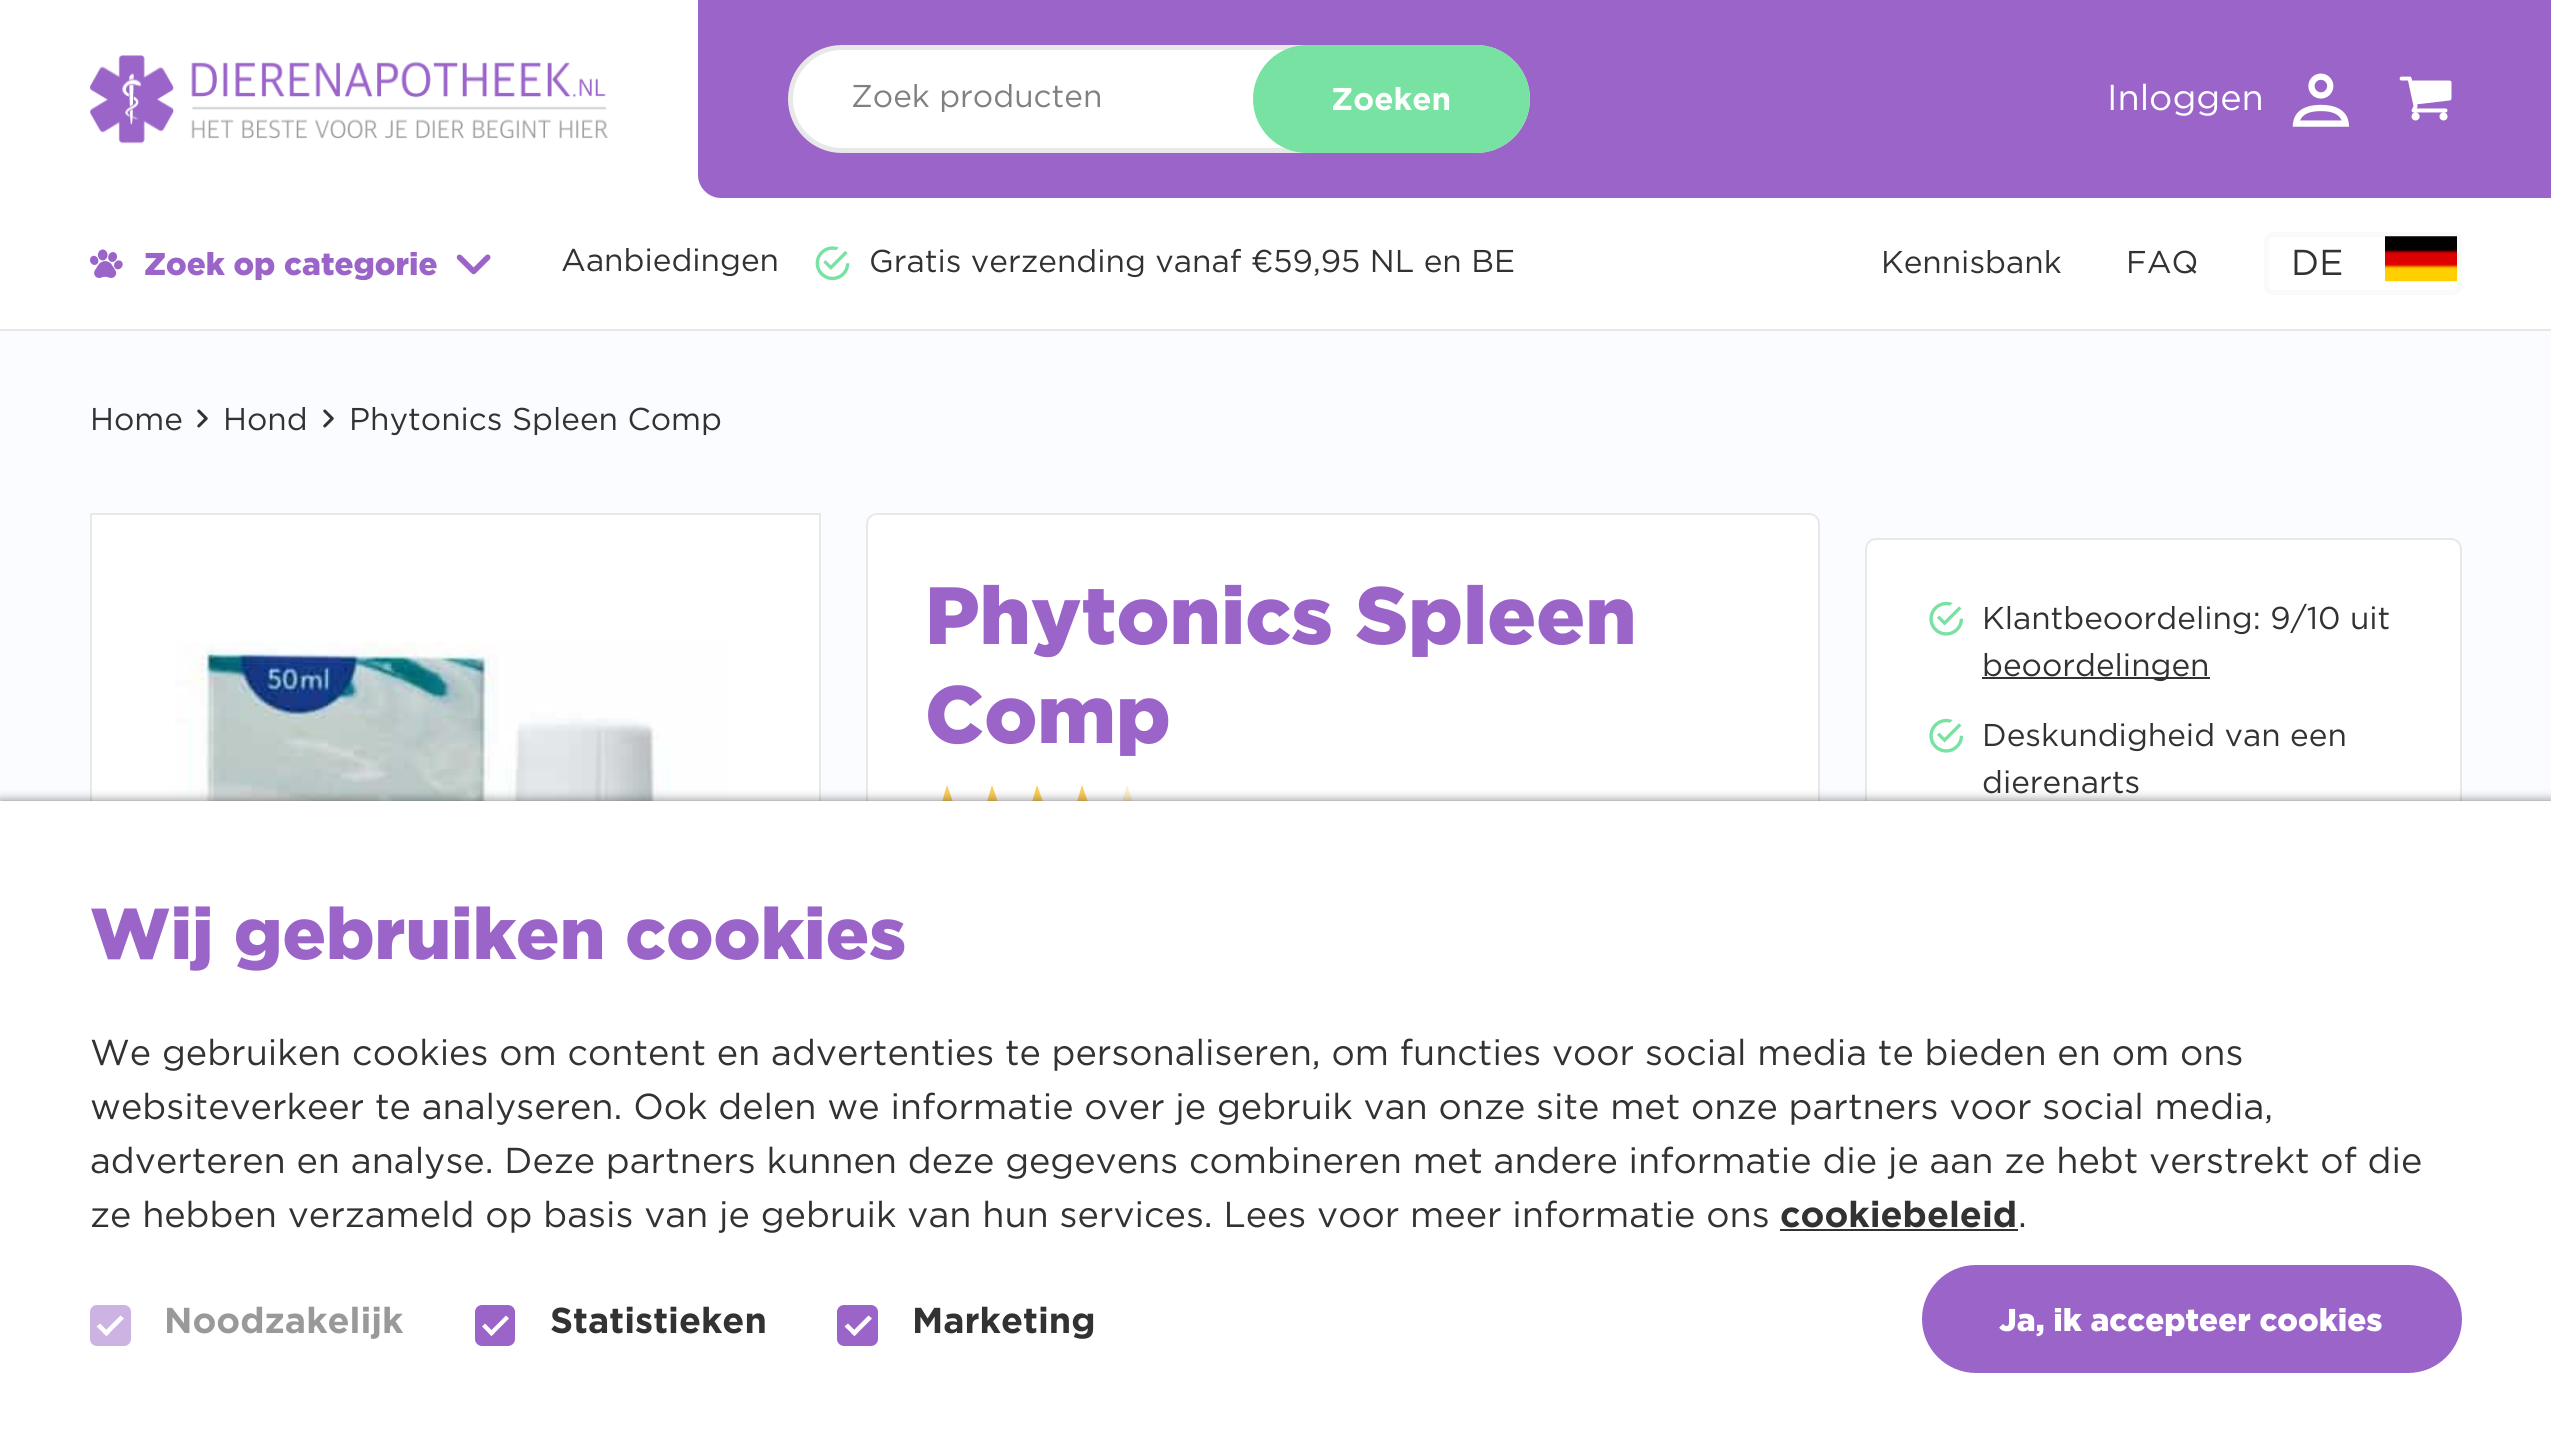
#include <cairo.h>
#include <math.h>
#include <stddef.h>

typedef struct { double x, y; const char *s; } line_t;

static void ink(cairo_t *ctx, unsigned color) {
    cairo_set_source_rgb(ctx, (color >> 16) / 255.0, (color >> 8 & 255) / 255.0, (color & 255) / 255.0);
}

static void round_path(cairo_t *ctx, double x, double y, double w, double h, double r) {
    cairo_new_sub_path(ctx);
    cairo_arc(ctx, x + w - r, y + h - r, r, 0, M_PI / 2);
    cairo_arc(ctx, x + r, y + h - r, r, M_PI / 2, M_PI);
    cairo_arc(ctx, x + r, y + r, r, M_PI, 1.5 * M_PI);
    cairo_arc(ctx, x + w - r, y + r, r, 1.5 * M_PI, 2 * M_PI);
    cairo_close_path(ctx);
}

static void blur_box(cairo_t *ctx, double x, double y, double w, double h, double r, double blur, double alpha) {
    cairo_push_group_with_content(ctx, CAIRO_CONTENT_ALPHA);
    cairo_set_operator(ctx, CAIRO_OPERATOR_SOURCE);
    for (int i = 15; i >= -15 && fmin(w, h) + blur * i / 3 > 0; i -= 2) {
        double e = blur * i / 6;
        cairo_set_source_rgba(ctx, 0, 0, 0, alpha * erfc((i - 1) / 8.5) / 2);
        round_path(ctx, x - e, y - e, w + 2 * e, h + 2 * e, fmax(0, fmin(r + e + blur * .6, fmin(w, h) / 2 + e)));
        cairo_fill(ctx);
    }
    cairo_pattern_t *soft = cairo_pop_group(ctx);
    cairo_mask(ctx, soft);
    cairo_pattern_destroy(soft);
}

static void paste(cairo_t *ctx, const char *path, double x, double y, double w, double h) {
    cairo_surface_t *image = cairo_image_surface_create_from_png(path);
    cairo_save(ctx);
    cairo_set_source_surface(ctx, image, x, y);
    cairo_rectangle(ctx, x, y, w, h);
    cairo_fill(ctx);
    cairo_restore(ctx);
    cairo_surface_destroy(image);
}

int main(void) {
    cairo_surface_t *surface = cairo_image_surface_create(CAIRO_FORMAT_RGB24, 2551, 1456);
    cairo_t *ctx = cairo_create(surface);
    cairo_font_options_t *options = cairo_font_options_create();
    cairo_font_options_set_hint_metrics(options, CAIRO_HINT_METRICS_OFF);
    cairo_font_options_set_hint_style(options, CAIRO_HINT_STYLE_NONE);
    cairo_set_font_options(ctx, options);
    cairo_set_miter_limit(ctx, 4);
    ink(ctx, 0xFBFCFF);
    cairo_paint(ctx);
    ink(ctx, 0xFFFFFF);
    cairo_rectangle(ctx, 0, 0, 2551, 329);
    cairo_fill(ctx);
    ink(ctx, 0xE8E8E8);
    cairo_rectangle(ctx, 0, 329, 2551, 2);
    cairo_fill(ctx);
    paste(ctx, "media/1.png", 90, 55, 518, 89);
    ink(ctx, 0x9A64C9);
    cairo_new_path(ctx);
    cairo_move_to(ctx, 698, 0);
    cairo_line_to(ctx, 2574, 0);
    cairo_line_to(ctx, 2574, 198);
    cairo_line_to(ctx, 721, 198);
    cairo_curve_to(ctx, 708.5, 198, 698, 187.5, 698, 175);
    cairo_close_path(ctx);
    cairo_fill(ctx);
    ink(ctx, 0xFFFFFF);
    round_path(ctx, 790.5, 47.5, 737, 103, 51.5);
    cairo_fill_preserve(ctx);
    ink(ctx, 0xE8E8E8);
    cairo_set_line_width(ctx, 5);
    cairo_stroke(ctx);
    cairo_select_font_face(ctx, "Gotham", CAIRO_FONT_SLANT_NORMAL, CAIRO_FONT_WEIGHT_NORMAL);
    cairo_set_font_size(ctx, 31.5);
    ink(ctx, 0x808080);
    cairo_move_to(ctx, 851, 107);
    cairo_show_text(ctx, "Zoek producten");
    ink(ctx, 0x77E2A2);
    round_path(ctx, 1253, 45, 277, 108, 54);
    cairo_fill(ctx);
    cairo_select_font_face(ctx, "Gotham", CAIRO_FONT_SLANT_NORMAL, CAIRO_FONT_WEIGHT_BOLD);
    ink(ctx, 0xFFFFFF);
    cairo_move_to(ctx, 1331, 110);
    cairo_show_text(ctx, "Zoeken");
    cairo_select_font_face(ctx, "Gotham", CAIRO_FONT_SLANT_NORMAL, CAIRO_FONT_WEIGHT_NORMAL);
    cairo_set_font_size(ctx, 36);
    cairo_move_to(ctx, 2107, 110);
    cairo_show_text(ctx, "Inloggen");
    paste(ctx, "media/2.png", 2292, 73, 57, 54);
    paste(ctx, "media/3.png", 2399, 76, 53, 45);
    paste(ctx, "media/4.png", 90, 249, 33, 29);
    cairo_select_font_face(ctx, "Gotham Black", CAIRO_FONT_SLANT_NORMAL, CAIRO_FONT_WEIGHT_NORMAL);
    cairo_set_font_size(ctx, 31.5);
    ink(ctx, 0x9A64C9);
    cairo_move_to(ctx, 144, 275);
    cairo_show_text(ctx, "Zoek op categorie");
    paste(ctx, "media/5.png", 456, 254, 35, 21);
    cairo_select_font_face(ctx, "Gotham", CAIRO_FONT_SLANT_NORMAL, CAIRO_FONT_WEIGHT_NORMAL);
    ink(ctx, 0x323232);
    cairo_move_to(ctx, 561, 271);
    cairo_show_text(ctx, "Aanbiedingen");
    paste(ctx, "media/6.png", 815, 246, 35, 35);
    {
        static const line_t items[] = {
            {869, 272, "Gratis verzending vanaf €59,95 NL en BE"},
            {1881, 273, "Kennisbank"},
            {2126, 273, "FAQ"},
        };
        for (size_t i = 0; i < sizeof items / sizeof *items; i++) {
            cairo_move_to(ctx, items[i].x, items[i].y);
            cairo_show_text(ctx, items[i].s);
        }
    }
    round_path(ctx, 2266.5, 234.5, 193, 58, 6.5);
    ink(ctx, 0xFAFAFA);
    cairo_stroke(ctx);
    cairo_set_font_size(ctx, 36);
    ink(ctx, 0x323232);
    cairo_move_to(ctx, 2291, 275);
    cairo_show_text(ctx, "DE");
    paste(ctx, "media/7.png", 2385, 236, 72, 46);
    cairo_set_font_size(ctx, 31.5);
    cairo_move_to(ctx, 90, 430);
    cairo_show_text(ctx, "Home");
    paste(ctx, "media/8.png", 197, 409, 11, 19);
    cairo_move_to(ctx, 223, 430);
    cairo_show_text(ctx, "Hond");
    paste(ctx, "media/8.png", 323, 409, 11, 19);
    cairo_move_to(ctx, 349, 430);
    cairo_show_text(ctx, "Phytonics Spleen Comp");
    ink(ctx, 0xFFFFFF);
    cairo_rectangle(ctx, 92, 515, 727, 286);
    cairo_fill(ctx);
    cairo_rectangle(ctx, 91, 514, 729, 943);
    ink(ctx, 0xE8E8E8);
    cairo_set_line_width(ctx, 2);
    cairo_stroke(ctx);
    paste(ctx, "media/9.png", 175, 642, 552, 159);
    ink(ctx, 0xFFFFFF);
    round_path(ctx, 867, 514, 952, 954, 10);
    cairo_fill_preserve(ctx);
    ink(ctx, 0xE8E8E8);
    cairo_stroke(ctx);
    cairo_select_font_face(ctx, "Gotham Black", CAIRO_FONT_SLANT_NORMAL, CAIRO_FONT_WEIGHT_NORMAL);
    cairo_set_font_size(ctx, 81);
    ink(ctx, 0x9A64C9);
    cairo_move_to(ctx, 925, 644);
    cairo_show_text(ctx, "Phytonics Spleen");
    cairo_move_to(ctx, 925, 743);
    cairo_show_text(ctx, "Comp");
    ink(ctx, 0xFECD58);
    cairo_new_path(ctx);
    cairo_move_to(ctx, 962, 830);
    cairo_line_to(ctx, 956, 813);
    cairo_line_to(ctx, 970, 802);
    cairo_line_to(ctx, 953, 802);
    cairo_line_to(ctx, 947, 785);
    cairo_line_to(ctx, 942, 802);
    cairo_line_to(ctx, 925, 802);
    cairo_line_to(ctx, 938, 813);
    cairo_line_to(ctx, 933, 830);
    cairo_line_to(ctx, 947, 820);
    cairo_close_path(ctx);
    cairo_fill(ctx);
    cairo_new_path(ctx);
    cairo_move_to(ctx, 1007, 830);
    cairo_line_to(ctx, 1001, 813);
    cairo_line_to(ctx, 1015, 802);
    cairo_line_to(ctx, 998, 802);
    cairo_line_to(ctx, 992, 785);
    cairo_line_to(ctx, 987, 802);
    cairo_line_to(ctx, 970, 802);
    cairo_line_to(ctx, 983, 813);
    cairo_line_to(ctx, 978, 830);
    cairo_line_to(ctx, 992, 820);
    cairo_close_path(ctx);
    cairo_fill(ctx);
    cairo_new_path(ctx);
    cairo_move_to(ctx, 1052, 830);
    cairo_line_to(ctx, 1046, 813);
    cairo_line_to(ctx, 1060, 802);
    cairo_line_to(ctx, 1043, 802);
    cairo_line_to(ctx, 1037, 785);
    cairo_line_to(ctx, 1032, 802);
    cairo_line_to(ctx, 1015, 802);
    cairo_line_to(ctx, 1028, 813);
    cairo_line_to(ctx, 1023, 830);
    cairo_line_to(ctx, 1037, 820);
    cairo_close_path(ctx);
    cairo_fill(ctx);
    cairo_new_path(ctx);
    cairo_move_to(ctx, 1097, 830);
    cairo_line_to(ctx, 1091, 813);
    cairo_line_to(ctx, 1105, 802);
    cairo_line_to(ctx, 1088, 802);
    cairo_line_to(ctx, 1082, 785);
    cairo_line_to(ctx, 1077, 802);
    cairo_line_to(ctx, 1060, 802);
    cairo_line_to(ctx, 1073, 813);
    cairo_line_to(ctx, 1068, 830);
    cairo_line_to(ctx, 1082, 820);
    cairo_close_path(ctx);
    cairo_fill(ctx);
    ink(ctx, 0xFFF0CD);
    cairo_new_path(ctx);
    cairo_move_to(ctx, 1142, 830);
    cairo_line_to(ctx, 1136, 813);
    cairo_line_to(ctx, 1150, 802);
    cairo_line_to(ctx, 1133, 802);
    cairo_line_to(ctx, 1127, 785);
    cairo_line_to(ctx, 1122, 802);
    cairo_line_to(ctx, 1105, 802);
    cairo_line_to(ctx, 1118, 813);
    cairo_line_to(ctx, 1113, 830);
    cairo_line_to(ctx, 1127, 820);
    cairo_close_path(ctx);
    cairo_fill(ctx);
    ink(ctx, 0xFFFFFF);
    round_path(ctx, 1866, 539, 595, 556, 10);
    cairo_fill_preserve(ctx);
    ink(ctx, 0xE8E8E8);
    cairo_stroke(ctx);
    paste(ctx, "media/10.png", 1929, 601, 35, 35);
    cairo_select_font_face(ctx, "Gotham", CAIRO_FONT_SLANT_NORMAL, CAIRO_FONT_WEIGHT_NORMAL);
    cairo_set_font_size(ctx, 31.5);
    ink(ctx, 0x323232);
    cairo_move_to(ctx, 1982, 629);
    cairo_show_text(ctx, "Klantbeoordeling: 9/10 uit");
    cairo_rectangle(ctx, 1982, 677, 228, 2);
    cairo_fill(ctx);
    cairo_move_to(ctx, 1982, 676);
    cairo_show_text(ctx, "beoordelingen");
    paste(ctx, "media/10.png", 1929, 718, 35, 35);
    cairo_move_to(ctx, 1982, 746);
    cairo_show_text(ctx, "Deskundigheid van een");
    cairo_move_to(ctx, 1982, 793);
    cairo_show_text(ctx, "dierenarts");
    ink(ctx, 0x000000);
    blur_box(ctx, 0, 801, 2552, 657, 0, 5.5, 0.5);
    ink(ctx, 0xFFFFFF);
    cairo_rectangle(ctx, 0, 801, 2551, 655);
    cairo_fill(ctx);
    cairo_select_font_face(ctx, "Gotham Black", CAIRO_FONT_SLANT_NORMAL, CAIRO_FONT_WEIGHT_NORMAL);
    cairo_set_font_size(ctx, 72);
    ink(ctx, 0x9A64C9);
    cairo_move_to(ctx, 90, 959);
    cairo_show_text(ctx, "Wij gebruiken cookies");
    cairo_select_font_face(ctx, "Gotham", CAIRO_FONT_SLANT_NORMAL, CAIRO_FONT_WEIGHT_NORMAL);
    cairo_set_font_size(ctx, 36);
    ink(ctx, 0x323232);
    {
        static const line_t items[] = {
            {90, 1065, "We gebruiken cookies om content en advertenties te personaliseren, om functies voor social media te bieden en om ons"},
            {90, 1119, "websiteverkeer te analyseren. Ook delen we informatie over je gebruik van onze site met onze partners voor social media,"},
            {90, 1173, "adverteren en analyse. Deze partners kunnen deze gegevens combineren met andere informatie die je aan ze hebt verstrekt of die"},
            {90, 1227, "ze hebben verzameld op basis van je gebruik van hun services. Lees voor meer informatie ons"},
        };
        for (size_t i = 0; i < sizeof items / sizeof *items; i++) {
            cairo_move_to(ctx, items[i].x, items[i].y);
            cairo_show_text(ctx, items[i].s);
        }
    }
    cairo_select_font_face(ctx, "Gotham", CAIRO_FONT_SLANT_NORMAL, CAIRO_FONT_WEIGHT_BOLD);
    cairo_move_to(ctx, 1780, 1227);
    cairo_show_text(ctx, "cookiebeleid");
    cairo_rectangle(ctx, 1780, 1229, 238, 2);
    cairo_fill(ctx);
    cairo_select_font_face(ctx, "Gotham", CAIRO_FONT_SLANT_NORMAL, CAIRO_FONT_WEIGHT_NORMAL);
    cairo_move_to(ctx, 2018, 1227);
    cairo_show_text(ctx, ".");
    ink(ctx, 0xCDB2E4);
    round_path(ctx, 92.5, 1307.5, 36, 36, 4.5);
    cairo_fill_preserve(ctx);
    cairo_set_line_width(ctx, 5);
    cairo_stroke(ctx);
    ink(ctx, 0xFFFFFF);
    cairo_new_path(ctx);
    cairo_move_to(ctx, 120.5, 1315.5);
    cairo_line_to(ctx, 124, 1318.5);
    cairo_line_to(ctx, 106.5, 1336);
    cairo_line_to(ctx, 103, 1333);
    cairo_close_path(ctx);
    cairo_fill(ctx);
    cairo_new_path(ctx);
    cairo_move_to(ctx, 100, 1323.5);
    cairo_line_to(ctx, 109.5, 1333);
    cairo_line_to(ctx, 106.5, 1336);
    cairo_line_to(ctx, 96.5, 1326.5);
    cairo_close_path(ctx);
    cairo_fill(ctx);
    cairo_select_font_face(ctx, "Gotham", CAIRO_FONT_SLANT_NORMAL, CAIRO_FONT_WEIGHT_BOLD);
    ink(ctx, 0x999999);
    cairo_move_to(ctx, 164, 1333);
    cairo_show_text(ctx, "Noodzakelijk");
    ink(ctx, 0x9A64C9);
    round_path(ctx, 477.5, 1307.5, 35, 36, 4.5);
    cairo_fill_preserve(ctx);
    cairo_stroke(ctx);
    ink(ctx, 0xFFFFFF);
    cairo_new_path(ctx);
    cairo_move_to(ctx, 506, 1315.5);
    cairo_line_to(ctx, 509, 1318.5);
    cairo_line_to(ctx, 491.5, 1336);
    cairo_line_to(ctx, 488.5, 1333);
    cairo_close_path(ctx);
    cairo_fill(ctx);
    cairo_new_path(ctx);
    cairo_move_to(ctx, 485, 1323.5);
    cairo_line_to(ctx, 494.5, 1333);
    cairo_line_to(ctx, 491.5, 1336);
    cairo_line_to(ctx, 482, 1326.5);
    cairo_close_path(ctx);
    cairo_fill(ctx);
    ink(ctx, 0x323232);
    cairo_move_to(ctx, 550, 1333);
    cairo_show_text(ctx, "Statistieken");
    ink(ctx, 0x9A64C9);
    round_path(ctx, 839.5, 1307.5, 36, 36, 4.5);
    cairo_fill_preserve(ctx);
    cairo_stroke(ctx);
    ink(ctx, 0xFFFFFF);
    cairo_new_path(ctx);
    cairo_move_to(ctx, 868.5, 1315.5);
    cairo_line_to(ctx, 872, 1318.5);
    cairo_line_to(ctx, 854.5, 1336);
    cairo_line_to(ctx, 851, 1333);
    cairo_close_path(ctx);
    cairo_fill(ctx);
    cairo_new_path(ctx);
    cairo_move_to(ctx, 848, 1323.5);
    cairo_line_to(ctx, 857.5, 1333);
    cairo_line_to(ctx, 854.5, 1336);
    cairo_line_to(ctx, 844.5, 1326.5);
    cairo_close_path(ctx);
    cairo_fill(ctx);
    ink(ctx, 0x323232);
    cairo_move_to(ctx, 912, 1333);
    cairo_show_text(ctx, "Marketing");
    ink(ctx, 0x9A64C9);
    round_path(ctx, 1922, 1265, 540, 108, 54);
    cairo_fill(ctx);
    cairo_select_font_face(ctx, "Gotham Black", CAIRO_FONT_SLANT_NORMAL, CAIRO_FONT_WEIGHT_NORMAL);
    cairo_set_font_size(ctx, 31.5);
    ink(ctx, 0xFFFFFF);
    cairo_move_to(ctx, 1999, 1331);
    cairo_show_text(ctx, "Ja, ik accepteer cookies");
    cairo_surface_write_to_png(surface, "image.png");
    cairo_font_options_destroy(options);
    cairo_destroy(ctx);
    cairo_surface_destroy(surface);
    return 0;
}
